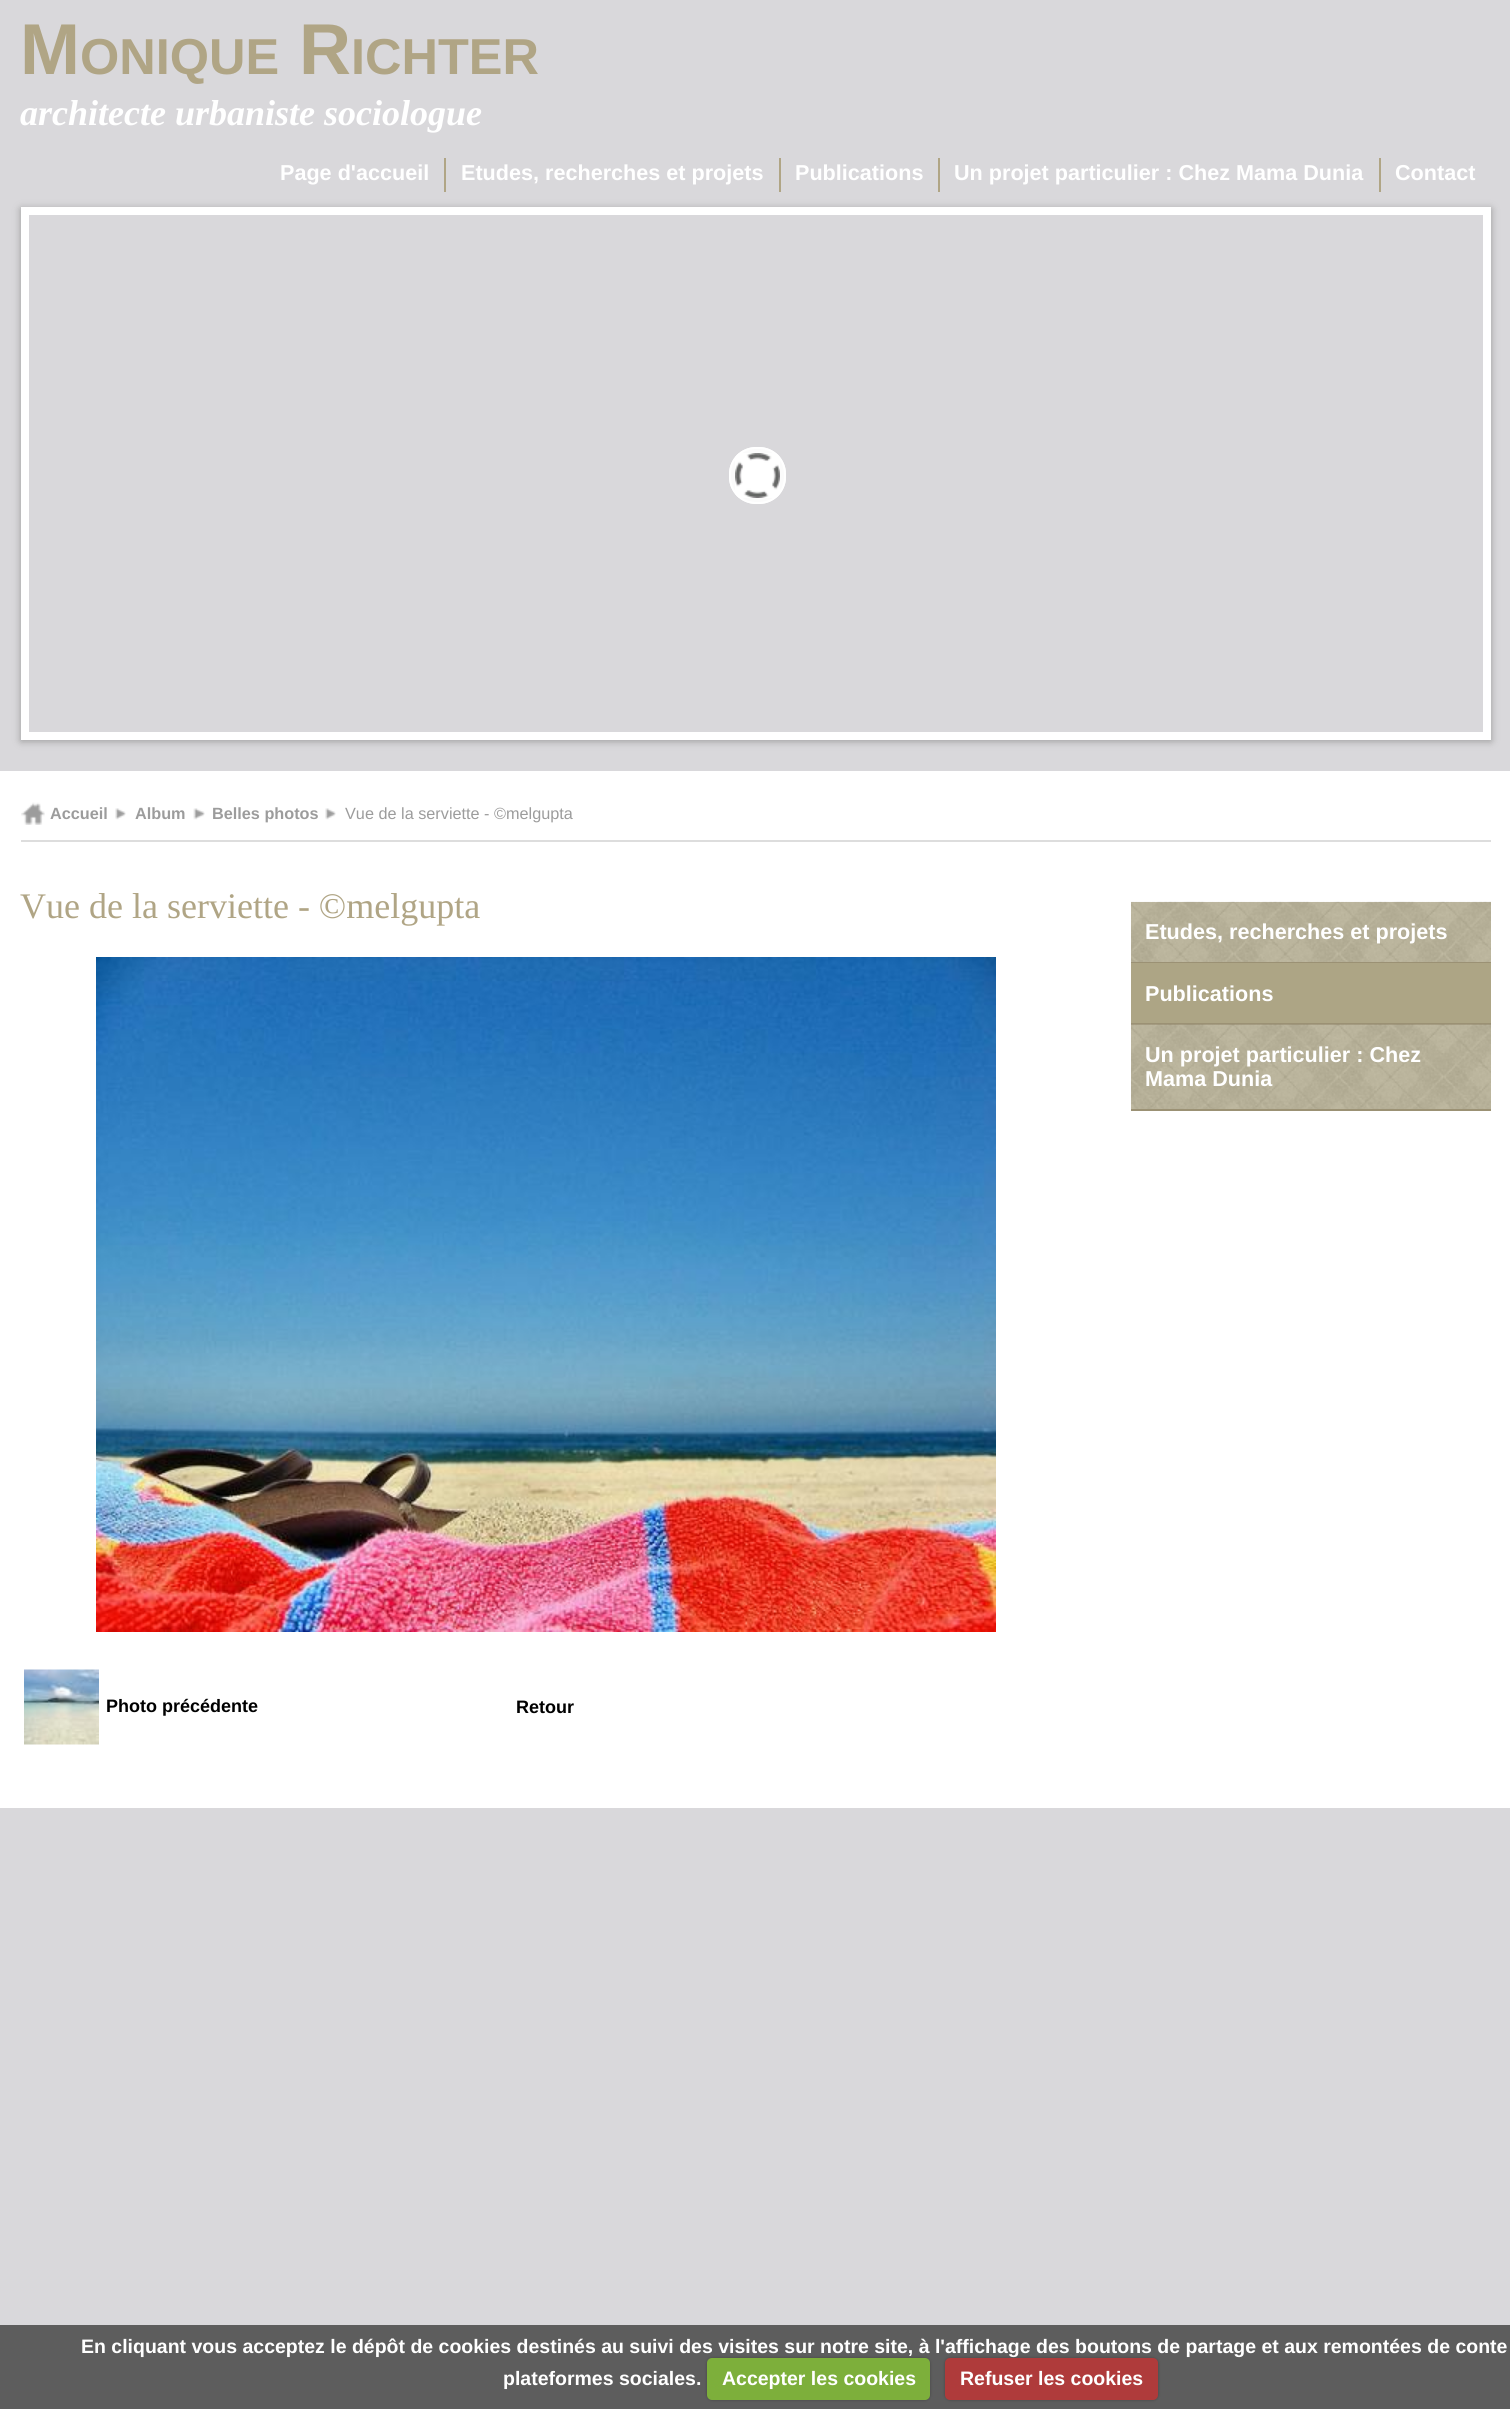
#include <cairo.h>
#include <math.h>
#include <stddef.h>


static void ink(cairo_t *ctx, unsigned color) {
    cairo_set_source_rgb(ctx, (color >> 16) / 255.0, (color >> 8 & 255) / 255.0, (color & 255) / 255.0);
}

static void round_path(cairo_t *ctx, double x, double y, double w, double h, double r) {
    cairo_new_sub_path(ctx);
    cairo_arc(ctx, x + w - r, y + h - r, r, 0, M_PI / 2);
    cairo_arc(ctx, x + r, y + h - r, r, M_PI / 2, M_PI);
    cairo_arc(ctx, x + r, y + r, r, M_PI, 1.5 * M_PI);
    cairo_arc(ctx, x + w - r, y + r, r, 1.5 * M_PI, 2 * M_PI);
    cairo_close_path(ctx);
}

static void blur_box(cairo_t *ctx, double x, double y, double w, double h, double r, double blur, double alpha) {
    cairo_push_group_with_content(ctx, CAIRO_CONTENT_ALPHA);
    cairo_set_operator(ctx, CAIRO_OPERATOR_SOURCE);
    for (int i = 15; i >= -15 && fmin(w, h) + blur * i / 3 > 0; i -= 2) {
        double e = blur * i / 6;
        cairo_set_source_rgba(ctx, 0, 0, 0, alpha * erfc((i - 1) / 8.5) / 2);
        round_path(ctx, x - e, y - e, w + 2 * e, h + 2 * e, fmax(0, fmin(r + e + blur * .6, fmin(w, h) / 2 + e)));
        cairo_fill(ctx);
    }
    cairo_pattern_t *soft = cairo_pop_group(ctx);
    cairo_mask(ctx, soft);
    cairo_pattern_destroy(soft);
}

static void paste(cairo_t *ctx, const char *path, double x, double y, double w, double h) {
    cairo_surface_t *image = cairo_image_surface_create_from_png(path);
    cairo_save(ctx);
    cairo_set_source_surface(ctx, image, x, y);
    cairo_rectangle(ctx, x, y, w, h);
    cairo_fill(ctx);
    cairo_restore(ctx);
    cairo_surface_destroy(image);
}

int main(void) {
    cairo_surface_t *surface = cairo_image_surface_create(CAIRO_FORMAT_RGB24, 1510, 2409);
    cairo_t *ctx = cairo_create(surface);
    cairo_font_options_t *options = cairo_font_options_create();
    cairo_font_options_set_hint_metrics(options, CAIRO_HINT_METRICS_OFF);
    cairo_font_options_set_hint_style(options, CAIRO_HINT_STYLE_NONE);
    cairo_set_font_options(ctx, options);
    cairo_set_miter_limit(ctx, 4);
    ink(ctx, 0xD9D8DB);
    cairo_paint(ctx);
    cairo_select_font_face(ctx, "Liberation Sans", CAIRO_FONT_SLANT_NORMAL, CAIRO_FONT_WEIGHT_BOLD);
    cairo_set_font_size(ctx, 72);
    ink(ctx, 0xB0A585);
    cairo_move_to(ctx, 20, 74);
    cairo_show_text(ctx, "M");
    cairo_set_font_size(ctx, 50.5);
    cairo_move_to(ctx, 80, 74);
    cairo_show_text(ctx, "ONIQUE");
    cairo_set_font_size(ctx, 72);
    cairo_move_to(ctx, 299, 74);
    cairo_show_text(ctx, "R");
    cairo_set_font_size(ctx, 50.5);
    cairo_move_to(ctx, 351, 74);
    cairo_show_text(ctx, "ICHTER");
    cairo_select_font_face(ctx, "Liberation Serif", CAIRO_FONT_SLANT_ITALIC, CAIRO_FONT_WEIGHT_BOLD);
    cairo_set_font_size(ctx, 36);
    ink(ctx, 0xFFFFFF);
    cairo_move_to(ctx, 20, 125);
    cairo_show_text(ctx, "architecte urbaniste sociologue");
    cairo_select_font_face(ctx, "Liberation Sans", CAIRO_FONT_SLANT_NORMAL, CAIRO_FONT_WEIGHT_BOLD);
    cairo_set_font_size(ctx, 21.6);
    cairo_move_to(ctx, 280, 180);
    cairo_show_text(ctx, "Page d'accueil");
    ink(ctx, 0xB0A585);
    cairo_rectangle(ctx, 444, 158, 2, 34);
    cairo_fill(ctx);
    ink(ctx, 0xFFFFFF);
    cairo_move_to(ctx, 461, 180);
    cairo_show_text(ctx, "Etudes, recherches et projets");
    ink(ctx, 0xB0A585);
    cairo_rectangle(ctx, 779, 158, 2, 34);
    cairo_fill(ctx);
    ink(ctx, 0xFFFFFF);
    cairo_move_to(ctx, 795, 180);
    cairo_show_text(ctx, "Publications");
    ink(ctx, 0xB0A585);
    cairo_rectangle(ctx, 938, 158, 2, 34);
    cairo_fill(ctx);
    ink(ctx, 0xFFFFFF);
    cairo_move_to(ctx, 954, 180);
    cairo_show_text(ctx, "Un projet particulier : Chez Mama Dunia");
    ink(ctx, 0xB0A585);
    cairo_rectangle(ctx, 1379, 158, 2, 34);
    cairo_fill(ctx);
    ink(ctx, 0xFFFFFF);
    cairo_move_to(ctx, 1395, 180);
    cairo_show_text(ctx, "Contact");
    cairo_save(ctx);
    cairo_set_fill_rule(ctx, CAIRO_FILL_RULE_EVEN_ODD);
    cairo_new_path(ctx);
    cairo_move_to(ctx, 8, 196);
    cairo_line_to(ctx, 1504, 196);
    cairo_line_to(ctx, 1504, 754);
    cairo_line_to(ctx, 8, 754);
    cairo_close_path(ctx);
    cairo_move_to(ctx, 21, 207);
    cairo_line_to(ctx, 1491, 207);
    cairo_line_to(ctx, 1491, 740);
    cairo_line_to(ctx, 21, 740);
    cairo_close_path(ctx);
    cairo_clip(ctx);
    ink(ctx, 0x999999);
    blur_box(ctx, 21, 209, 1470, 532, 0, 4, 1);
    cairo_restore(ctx);
    cairo_rectangle(ctx, 25, 211, 1462, 525);
    cairo_set_line_width(ctx, 8);
    cairo_stroke(ctx);
    ink(ctx, 0xFBFBFB);
    round_path(ctx, 729, 447, 57, 57, 27);
    cairo_fill(ctx);
    paste(ctx, "media/1.png", 735, 453, 45, 45);
    round_path(ctx, 730, 448, 55, 55, 26);
    ink(ctx, 0xFFFFFF);
    cairo_set_line_width(ctx, 2);
    cairo_stroke(ctx);
    cairo_rectangle(ctx, 0, 771, 1510, 1037);
    cairo_fill(ctx);
    ink(ctx, 0xDDDDDD);
    cairo_rectangle(ctx, 21, 840, 1470, 2);
    cairo_fill(ctx);
    paste(ctx, "media/2.png", 21, 802, 24, 23);
    cairo_set_font_size(ctx, 16.25);
    ink(ctx, 0x9C9C9C);
    cairo_move_to(ctx, 50, 819);
    cairo_show_text(ctx, "Accueil");
    paste(ctx, "media/3.png", 115, 808, 11, 12);
    cairo_move_to(ctx, 135, 819);
    cairo_show_text(ctx, "Album");
    paste(ctx, "media/4.png", 193, 808, 12, 12);
    cairo_move_to(ctx, 212, 819);
    cairo_show_text(ctx, "Belles photos");
    paste(ctx, "media/3.png", 325, 808, 11, 12);
    cairo_select_font_face(ctx, "Liberation Sans", CAIRO_FONT_SLANT_NORMAL, CAIRO_FONT_WEIGHT_NORMAL);
    cairo_move_to(ctx, 345, 819);
    cairo_show_text(ctx, "Vue de la serviette - ©melgupta");
    cairo_select_font_face(ctx, "Liberation Serif", CAIRO_FONT_SLANT_NORMAL, CAIRO_FONT_WEIGHT_NORMAL);
    cairo_set_font_size(ctx, 36);
    ink(ctx, 0xB0A585);
    cairo_move_to(ctx, 20, 918);
    cairo_show_text(ctx, "Vue de la serviette - ©melgupta");
    paste(ctx, "media/5.png", 96, 957, 900, 675);
    paste(ctx, "media/6.png", 24, 1669, 75, 76);
    cairo_select_font_face(ctx, "Liberation Sans", CAIRO_FONT_SLANT_NORMAL, CAIRO_FONT_WEIGHT_BOLD);
    cairo_set_font_size(ctx, 18);
    ink(ctx, 0x000000);
    cairo_move_to(ctx, 106, 1712);
    cairo_show_text(ctx, "Photo précédente");
    cairo_move_to(ctx, 516, 1713);
    cairo_show_text(ctx, "Retour");
    ink(ctx, 0xADA585);
    cairo_rectangle(ctx, 1131, 902, 360, 60);
    cairo_fill(ctx);
    paste(ctx, "media/7.png", 1131, 901, 360, 61);
    ink(ctx, 0x9B9174);
    cairo_rectangle(ctx, 1131, 962, 360, 1);
    cairo_fill(ctx);
    cairo_set_font_size(ctx, 21.6);
    ink(ctx, 0xFFFFFF);
    cairo_move_to(ctx, 1145, 939);
    cairo_show_text(ctx, "Etudes, recherches et projets");
    ink(ctx, 0xADA585);
    cairo_rectangle(ctx, 1131, 963, 360, 60);
    cairo_fill(ctx);
    ink(ctx, 0x9B9174);
    cairo_rectangle(ctx, 1131, 1023, 360, 2);
    cairo_fill(ctx);
    ink(ctx, 0xFFFFFF);
    cairo_move_to(ctx, 1145, 1001);
    cairo_show_text(ctx, "Publications");
    ink(ctx, 0xADA585);
    cairo_rectangle(ctx, 1131, 1025, 360, 84);
    cairo_fill(ctx);
    paste(ctx, "media/8.png", 1131, 1024, 360, 85);
    ink(ctx, 0x9B9174);
    cairo_rectangle(ctx, 1131, 1109, 360, 2);
    cairo_fill(ctx);
    ink(ctx, 0xFFFFFF);
    cairo_move_to(ctx, 1145, 1062);
    cairo_show_text(ctx, "Un projet particulier : Chez");
    cairo_move_to(ctx, 1145, 1086);
    cairo_show_text(ctx, "Mama Dunia");
    ink(ctx, 0x5D5D5D);
    cairo_rectangle(ctx, 0, 2325, 1510, 84);
    cairo_fill(ctx);
    cairo_set_font_size(ctx, 19.5);
    ink(ctx, 0xFFFFFF);
    cairo_move_to(ctx, 81, 2353);
    cairo_show_text(ctx, "En cliquant vous acceptez le dépôt de cookies destinés au suivi des visites sur notre site, à l'affichage des boutons de partage et aux remontées de conte");
    cairo_move_to(ctx, 503, 2385);
    cairo_show_text(ctx, "plateformes sociales.");
    ink(ctx, 0x000000);
    blur_box(ctx, 707, 2358, 223, 42, 5, 1.5, 0.25);
    ink(ctx, 0x7DAF3B);
    round_path(ctx, 707, 2358, 223, 42, 5);
    cairo_fill(ctx);
    ink(ctx, 0xFFFFFF);
    cairo_move_to(ctx, 722, 2385);
    cairo_show_text(ctx, "Accepter les cookies");
    ink(ctx, 0x000000);
    blur_box(ctx, 945, 2358, 213, 42, 5, 1.5, 0.25);
    ink(ctx, 0xAF3B3B);
    round_path(ctx, 945, 2358, 213, 42, 5);
    cairo_fill(ctx);
    ink(ctx, 0xFFFFFF);
    cairo_move_to(ctx, 960, 2385);
    cairo_show_text(ctx, "Refuser les cookies");
    cairo_surface_write_to_png(surface, "image.png");
    cairo_font_options_destroy(options);
    cairo_destroy(ctx);
    cairo_surface_destroy(surface);
    return 0;
}
